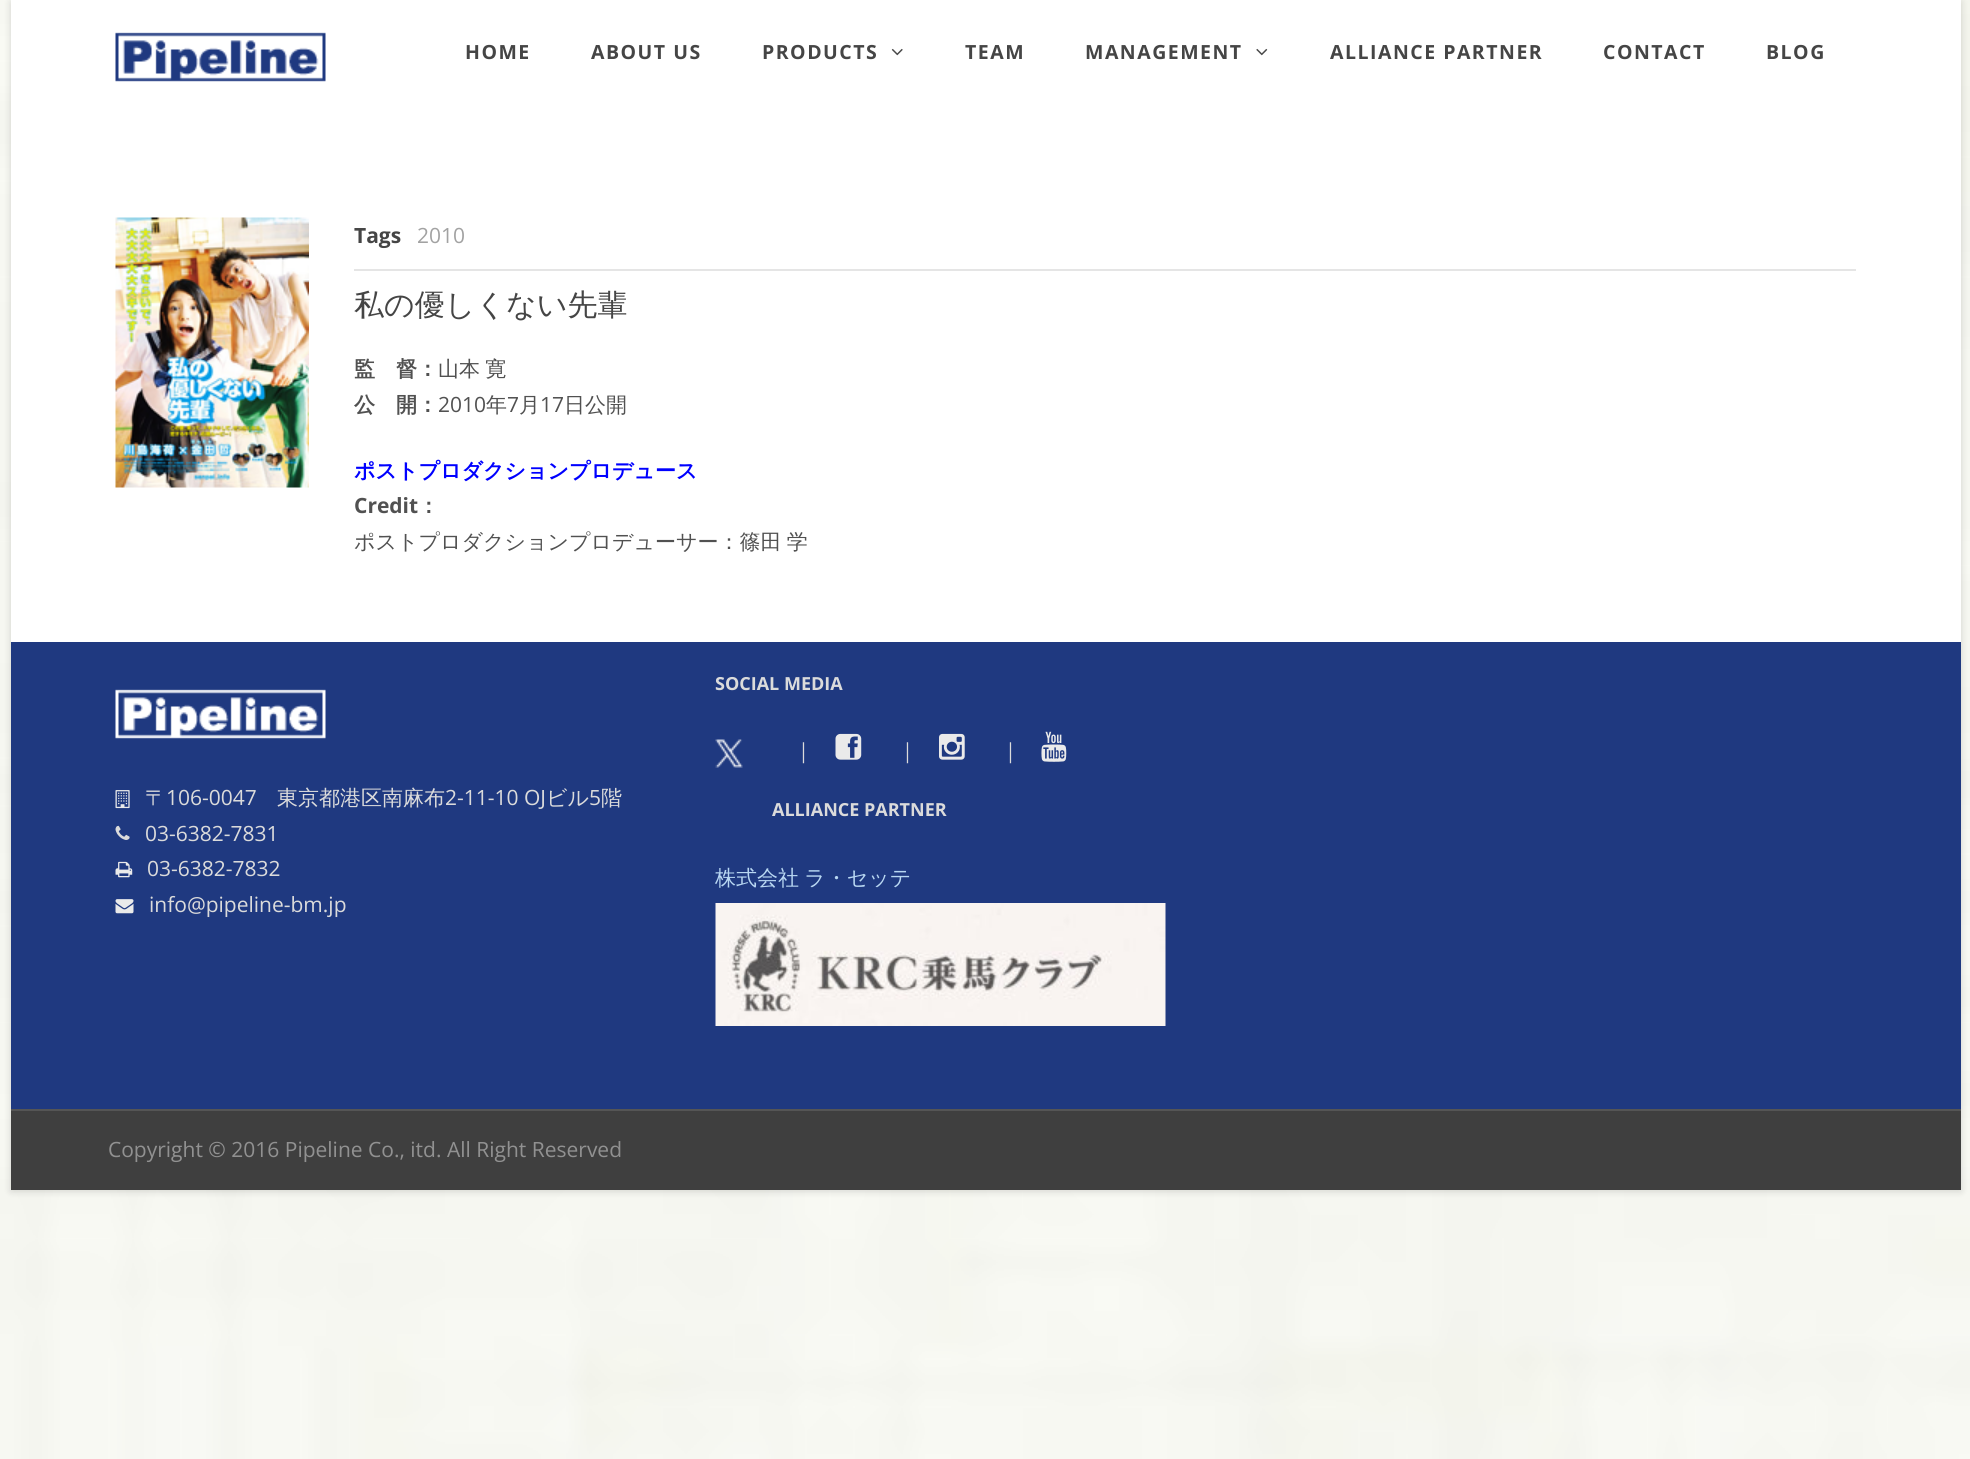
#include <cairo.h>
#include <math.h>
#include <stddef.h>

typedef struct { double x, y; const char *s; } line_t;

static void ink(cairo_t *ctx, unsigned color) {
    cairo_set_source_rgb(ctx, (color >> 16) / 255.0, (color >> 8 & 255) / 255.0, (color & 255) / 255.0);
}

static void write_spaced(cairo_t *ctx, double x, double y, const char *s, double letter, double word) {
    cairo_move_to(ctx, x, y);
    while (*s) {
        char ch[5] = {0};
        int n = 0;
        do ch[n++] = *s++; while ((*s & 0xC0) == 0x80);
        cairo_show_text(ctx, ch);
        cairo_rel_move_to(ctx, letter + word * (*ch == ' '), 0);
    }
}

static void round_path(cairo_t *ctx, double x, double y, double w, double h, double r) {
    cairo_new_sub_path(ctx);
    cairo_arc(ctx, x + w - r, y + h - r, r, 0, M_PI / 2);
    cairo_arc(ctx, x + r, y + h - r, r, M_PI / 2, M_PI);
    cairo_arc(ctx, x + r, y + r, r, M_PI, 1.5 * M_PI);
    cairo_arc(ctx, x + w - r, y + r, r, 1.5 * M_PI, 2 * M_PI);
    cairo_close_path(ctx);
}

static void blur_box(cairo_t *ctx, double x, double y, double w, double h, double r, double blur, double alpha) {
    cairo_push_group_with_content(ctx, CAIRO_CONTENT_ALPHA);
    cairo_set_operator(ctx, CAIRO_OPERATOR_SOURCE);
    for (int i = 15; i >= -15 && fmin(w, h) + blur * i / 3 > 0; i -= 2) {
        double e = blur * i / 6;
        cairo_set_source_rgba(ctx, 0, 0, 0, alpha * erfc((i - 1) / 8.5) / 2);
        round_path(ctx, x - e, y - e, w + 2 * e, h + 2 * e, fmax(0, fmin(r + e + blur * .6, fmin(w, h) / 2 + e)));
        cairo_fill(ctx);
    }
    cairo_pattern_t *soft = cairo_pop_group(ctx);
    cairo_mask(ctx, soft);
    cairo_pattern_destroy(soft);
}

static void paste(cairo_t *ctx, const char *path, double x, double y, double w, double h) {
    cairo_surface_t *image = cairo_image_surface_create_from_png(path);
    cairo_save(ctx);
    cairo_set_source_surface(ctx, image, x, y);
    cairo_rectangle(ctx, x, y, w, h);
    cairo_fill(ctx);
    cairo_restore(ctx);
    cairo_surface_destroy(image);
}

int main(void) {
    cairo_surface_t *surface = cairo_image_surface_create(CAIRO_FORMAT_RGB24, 1970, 1459);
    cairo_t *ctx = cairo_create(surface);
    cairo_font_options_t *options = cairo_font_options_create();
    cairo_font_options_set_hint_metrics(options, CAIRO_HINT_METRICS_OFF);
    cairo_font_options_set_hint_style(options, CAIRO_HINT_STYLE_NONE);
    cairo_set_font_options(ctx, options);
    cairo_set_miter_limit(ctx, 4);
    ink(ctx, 0xFFFFFF);
    cairo_paint(ctx);
    paste(ctx, "media/1.png", 0, 0, 1970, 1459);
    ink(ctx, 0x000000);
    blur_box(ctx, 11, 2, 1950, 1189, 0, 4, 0.15);
    ink(ctx, 0xFFFFFF);
    cairo_rectangle(ctx, 11, 0, 1950, 642);
    cairo_fill(ctx);
    paste(ctx, "media/2.png", 115, 32, 211, 50);
    cairo_select_font_face(ctx, "Open Sans", CAIRO_FONT_SLANT_NORMAL, CAIRO_FONT_WEIGHT_BOLD);
    cairo_set_font_size(ctx, 19.5);
    ink(ctx, 0x454545);
    {
        static const line_t items[] = {
            {465, 59, "HOME"},
            {591, 59, "ABOUT US"},
            {762, 59, "PRODUCTS"},
        };
        for (size_t i = 0; i < sizeof items / sizeof *items; i++) {
            write_spaced(ctx, items[i].x, items[i].y, items[i].s, 1.5, 0);
        }
    }
    paste(ctx, "media/3.png", 891, 48, 12, 8);
    write_spaced(ctx, 965, 59, "TEAM", 1.5, 0);
    write_spaced(ctx, 1085, 59, "MANAGEMENT", 1.5, 0);
    paste(ctx, "media/4.png", 1256, 48, 12, 8);
    {
        static const line_t items[] = {
            {1330, 59, "ALLIANCE PARTNER"},
            {1603, 59, "CONTACT"},
            {1766, 59, "BLOG"},
        };
        for (size_t i = 0; i < sizeof items / sizeof *items; i++) {
            write_spaced(ctx, items[i].x, items[i].y, items[i].s, 1.5, 0);
        }
    }
    paste(ctx, "media/5.png", 115, 217, 194, 271);
    ink(ctx, 0xE5E5E5);
    cairo_rectangle(ctx, 354, 269, 1502, 2);
    cairo_fill(ctx);
    cairo_set_font_size(ctx, 21);
    ink(ctx, 0x454545);
    cairo_move_to(ctx, 354, 243);
    cairo_show_text(ctx, "Tags");
    cairo_select_font_face(ctx, "Open Sans", CAIRO_FONT_SLANT_NORMAL, CAIRO_FONT_WEIGHT_NORMAL);
    ink(ctx, 0xA2A2A2);
    cairo_move_to(ctx, 417, 243);
    cairo_show_text(ctx, "2010");
    cairo_select_font_face(ctx, "WenQuanYi Zen Hei Medium", CAIRO_FONT_SLANT_NORMAL, CAIRO_FONT_WEIGHT_NORMAL);
    cairo_set_font_size(ctx, 30);
    ink(ctx, 0x454545);
    cairo_move_to(ctx, 354, 315);
    cairo_show_text(ctx, "私の優しくない先輩");
    cairo_select_font_face(ctx, "WenQuanYi Zen Hei", CAIRO_FONT_SLANT_NORMAL, CAIRO_FONT_WEIGHT_BOLD);
    cairo_set_font_size(ctx, 21);
    ink(ctx, 0x515151);
    cairo_move_to(ctx, 354, 376);
    cairo_show_text(ctx, "監　督：");
    cairo_select_font_face(ctx, "WenQuanYi Zen Hei Medium", CAIRO_FONT_SLANT_NORMAL, CAIRO_FONT_WEIGHT_NORMAL);
    write_spaced(ctx, 438, 376, "山本 寛", 0, -1);
    cairo_select_font_face(ctx, "WenQuanYi Zen Hei", CAIRO_FONT_SLANT_NORMAL, CAIRO_FONT_WEIGHT_BOLD);
    cairo_move_to(ctx, 354, 412);
    cairo_show_text(ctx, "公　開：");
    cairo_select_font_face(ctx, "Open Sans", CAIRO_FONT_SLANT_NORMAL, CAIRO_FONT_WEIGHT_NORMAL);
    cairo_move_to(ctx, 438, 412);
    cairo_show_text(ctx, "2010");
    cairo_select_font_face(ctx, "WenQuanYi Zen Hei Medium", CAIRO_FONT_SLANT_NORMAL, CAIRO_FONT_WEIGHT_NORMAL);
    cairo_move_to(ctx, 486, 412);
    cairo_show_text(ctx, "年");
    cairo_select_font_face(ctx, "Open Sans", CAIRO_FONT_SLANT_NORMAL, CAIRO_FONT_WEIGHT_NORMAL);
    cairo_move_to(ctx, 507, 412);
    cairo_show_text(ctx, "7");
    cairo_select_font_face(ctx, "WenQuanYi Zen Hei Medium", CAIRO_FONT_SLANT_NORMAL, CAIRO_FONT_WEIGHT_NORMAL);
    cairo_move_to(ctx, 519, 412);
    cairo_show_text(ctx, "月");
    cairo_select_font_face(ctx, "Open Sans", CAIRO_FONT_SLANT_NORMAL, CAIRO_FONT_WEIGHT_NORMAL);
    cairo_move_to(ctx, 540, 412);
    cairo_show_text(ctx, "17");
    cairo_select_font_face(ctx, "WenQuanYi Zen Hei Medium", CAIRO_FONT_SLANT_NORMAL, CAIRO_FONT_WEIGHT_NORMAL);
    cairo_move_to(ctx, 564, 412);
    cairo_show_text(ctx, "日公開");
    cairo_select_font_face(ctx, "WenQuanYi Zen Hei", CAIRO_FONT_SLANT_NORMAL, CAIRO_FONT_WEIGHT_BOLD);
    ink(ctx, 0x0000FF);
    cairo_move_to(ctx, 354, 478);
    cairo_show_text(ctx, "ポストプロダクションプロデュース");
    cairo_select_font_face(ctx, "Open Sans", CAIRO_FONT_SLANT_NORMAL, CAIRO_FONT_WEIGHT_BOLD);
    ink(ctx, 0x515151);
    cairo_move_to(ctx, 354, 513);
    cairo_show_text(ctx, "Credit");
    cairo_select_font_face(ctx, "WenQuanYi Zen Hei", CAIRO_FONT_SLANT_NORMAL, CAIRO_FONT_WEIGHT_BOLD);
    cairo_move_to(ctx, 418, 513);
    cairo_show_text(ctx, "：");
    cairo_select_font_face(ctx, "WenQuanYi Zen Hei Medium", CAIRO_FONT_SLANT_NORMAL, CAIRO_FONT_WEIGHT_NORMAL);
    write_spaced(ctx, 354, 549, "ポストプロダクションプロデューサー：篠田 学", 0, -1);
    ink(ctx, 0x1F3980);
    cairo_rectangle(ctx, 11, 642, 1950, 467);
    cairo_fill(ctx);
    ink(ctx, 0xDBDBDB);
    cairo_move_to(ctx, 277, 805);
    cairo_show_text(ctx, "東京都港区南麻布");
    cairo_select_font_face(ctx, "Open Sans", CAIRO_FONT_SLANT_NORMAL, CAIRO_FONT_WEIGHT_NORMAL);
    cairo_move_to(ctx, 445, 805);
    cairo_show_text(ctx, "2-11-10 OJ");
    cairo_select_font_face(ctx, "WenQuanYi Zen Hei Medium", CAIRO_FONT_SLANT_NORMAL, CAIRO_FONT_WEIGHT_NORMAL);
    cairo_move_to(ctx, 546, 805);
    cairo_show_text(ctx, "ビル");
    cairo_select_font_face(ctx, "Open Sans", CAIRO_FONT_SLANT_NORMAL, CAIRO_FONT_WEIGHT_NORMAL);
    cairo_move_to(ctx, 589, 805);
    cairo_show_text(ctx, "5");
    cairo_select_font_face(ctx, "WenQuanYi Zen Hei Medium", CAIRO_FONT_SLANT_NORMAL, CAIRO_FONT_WEIGHT_NORMAL);
    cairo_move_to(ctx, 601, 805);
    cairo_show_text(ctx, "階");
    paste(ctx, "media/6.png", 115, 825, 15, 15);
    cairo_select_font_face(ctx, "Open Sans", CAIRO_FONT_SLANT_NORMAL, CAIRO_FONT_WEIGHT_NORMAL);
    cairo_move_to(ctx, 145, 841);
    cairo_show_text(ctx, "03-6382-7831");
    paste(ctx, "media/7.png", 115, 861, 18, 17);
    cairo_move_to(ctx, 147, 876);
    cairo_show_text(ctx, "03-6382-7832");
    paste(ctx, "media/8.png", 115, 899, 19, 15);
    cairo_move_to(ctx, 149, 912);
    cairo_show_text(ctx, "info@pipeline-bm.jp");
    paste(ctx, "media/9.png", 115, 689, 211, 50);
    paste(ctx, "media/10.png", 115, 790, 15, 19);
    cairo_select_font_face(ctx, "WenQuanYi Zen Hei Medium", CAIRO_FONT_SLANT_NORMAL, CAIRO_FONT_WEIGHT_NORMAL);
    cairo_move_to(ctx, 145, 805);
    cairo_show_text(ctx, "〒");
    cairo_select_font_face(ctx, "Open Sans", CAIRO_FONT_SLANT_NORMAL, CAIRO_FONT_WEIGHT_NORMAL);
    cairo_move_to(ctx, 166, 805);
    cairo_show_text(ctx, "106-0047");
    cairo_select_font_face(ctx, "Open Sans", CAIRO_FONT_SLANT_NORMAL, CAIRO_FONT_WEIGHT_BOLD);
    cairo_set_font_size(ctx, 18);
    cairo_move_to(ctx, 715, 690);
    cairo_show_text(ctx, "SOCIAL MEDIA");
    paste(ctx, "media/11.png", 715, 739, 28, 29);
    cairo_select_font_face(ctx, "WenQuanYi Zen Hei Medium", CAIRO_FONT_SLANT_NORMAL, CAIRO_FONT_WEIGHT_NORMAL);
    cairo_set_font_size(ctx, 21);
    cairo_move_to(ctx, 793, 758);
    cairo_show_text(ctx, "｜");
    paste(ctx, "media/12.png", 835, 733, 27, 27);
    cairo_move_to(ctx, 897, 758);
    cairo_show_text(ctx, "｜");
    paste(ctx, "media/13.png", 939, 733, 26, 27);
    cairo_move_to(ctx, 1000, 758);
    cairo_show_text(ctx, "｜");
    paste(ctx, "media/14.png", 1041, 731, 26, 31);
    cairo_select_font_face(ctx, "Open Sans", CAIRO_FONT_SLANT_NORMAL, CAIRO_FONT_WEIGHT_BOLD);
    cairo_set_font_size(ctx, 18);
    cairo_move_to(ctx, 772, 816);
    cairo_show_text(ctx, "ALLIANCE PARTNER");
    cairo_select_font_face(ctx, "WenQuanYi Zen Hei Medium", CAIRO_FONT_SLANT_NORMAL, CAIRO_FONT_WEIGHT_NORMAL);
    cairo_set_font_size(ctx, 21);
    ink(ctx, 0xB8D7F2);
    write_spaced(ctx, 715, 885, "株式会社 ラ・セッテ", 0, -1);
    paste(ctx, "media/15.png", 715, 903, 451, 123);
    ink(ctx, 0x3F3F3F);
    cairo_rectangle(ctx, 11, 1111, 1950, 79);
    cairo_fill(ctx);
    ink(ctx, 0x555555);
    cairo_rectangle(ctx, 11, 1109, 1950, 2);
    cairo_fill(ctx);
    cairo_select_font_face(ctx, "Open Sans", CAIRO_FONT_SLANT_NORMAL, CAIRO_FONT_WEIGHT_NORMAL);
    ink(ctx, 0x919191);
    cairo_move_to(ctx, 108, 1157);
    cairo_show_text(ctx, "Copyright © 2016 Pipeline Co., itd. All Right Reserved");
    cairo_surface_write_to_png(surface, "image.png");
    cairo_font_options_destroy(options);
    cairo_destroy(ctx);
    cairo_surface_destroy(surface);
    return 0;
}
